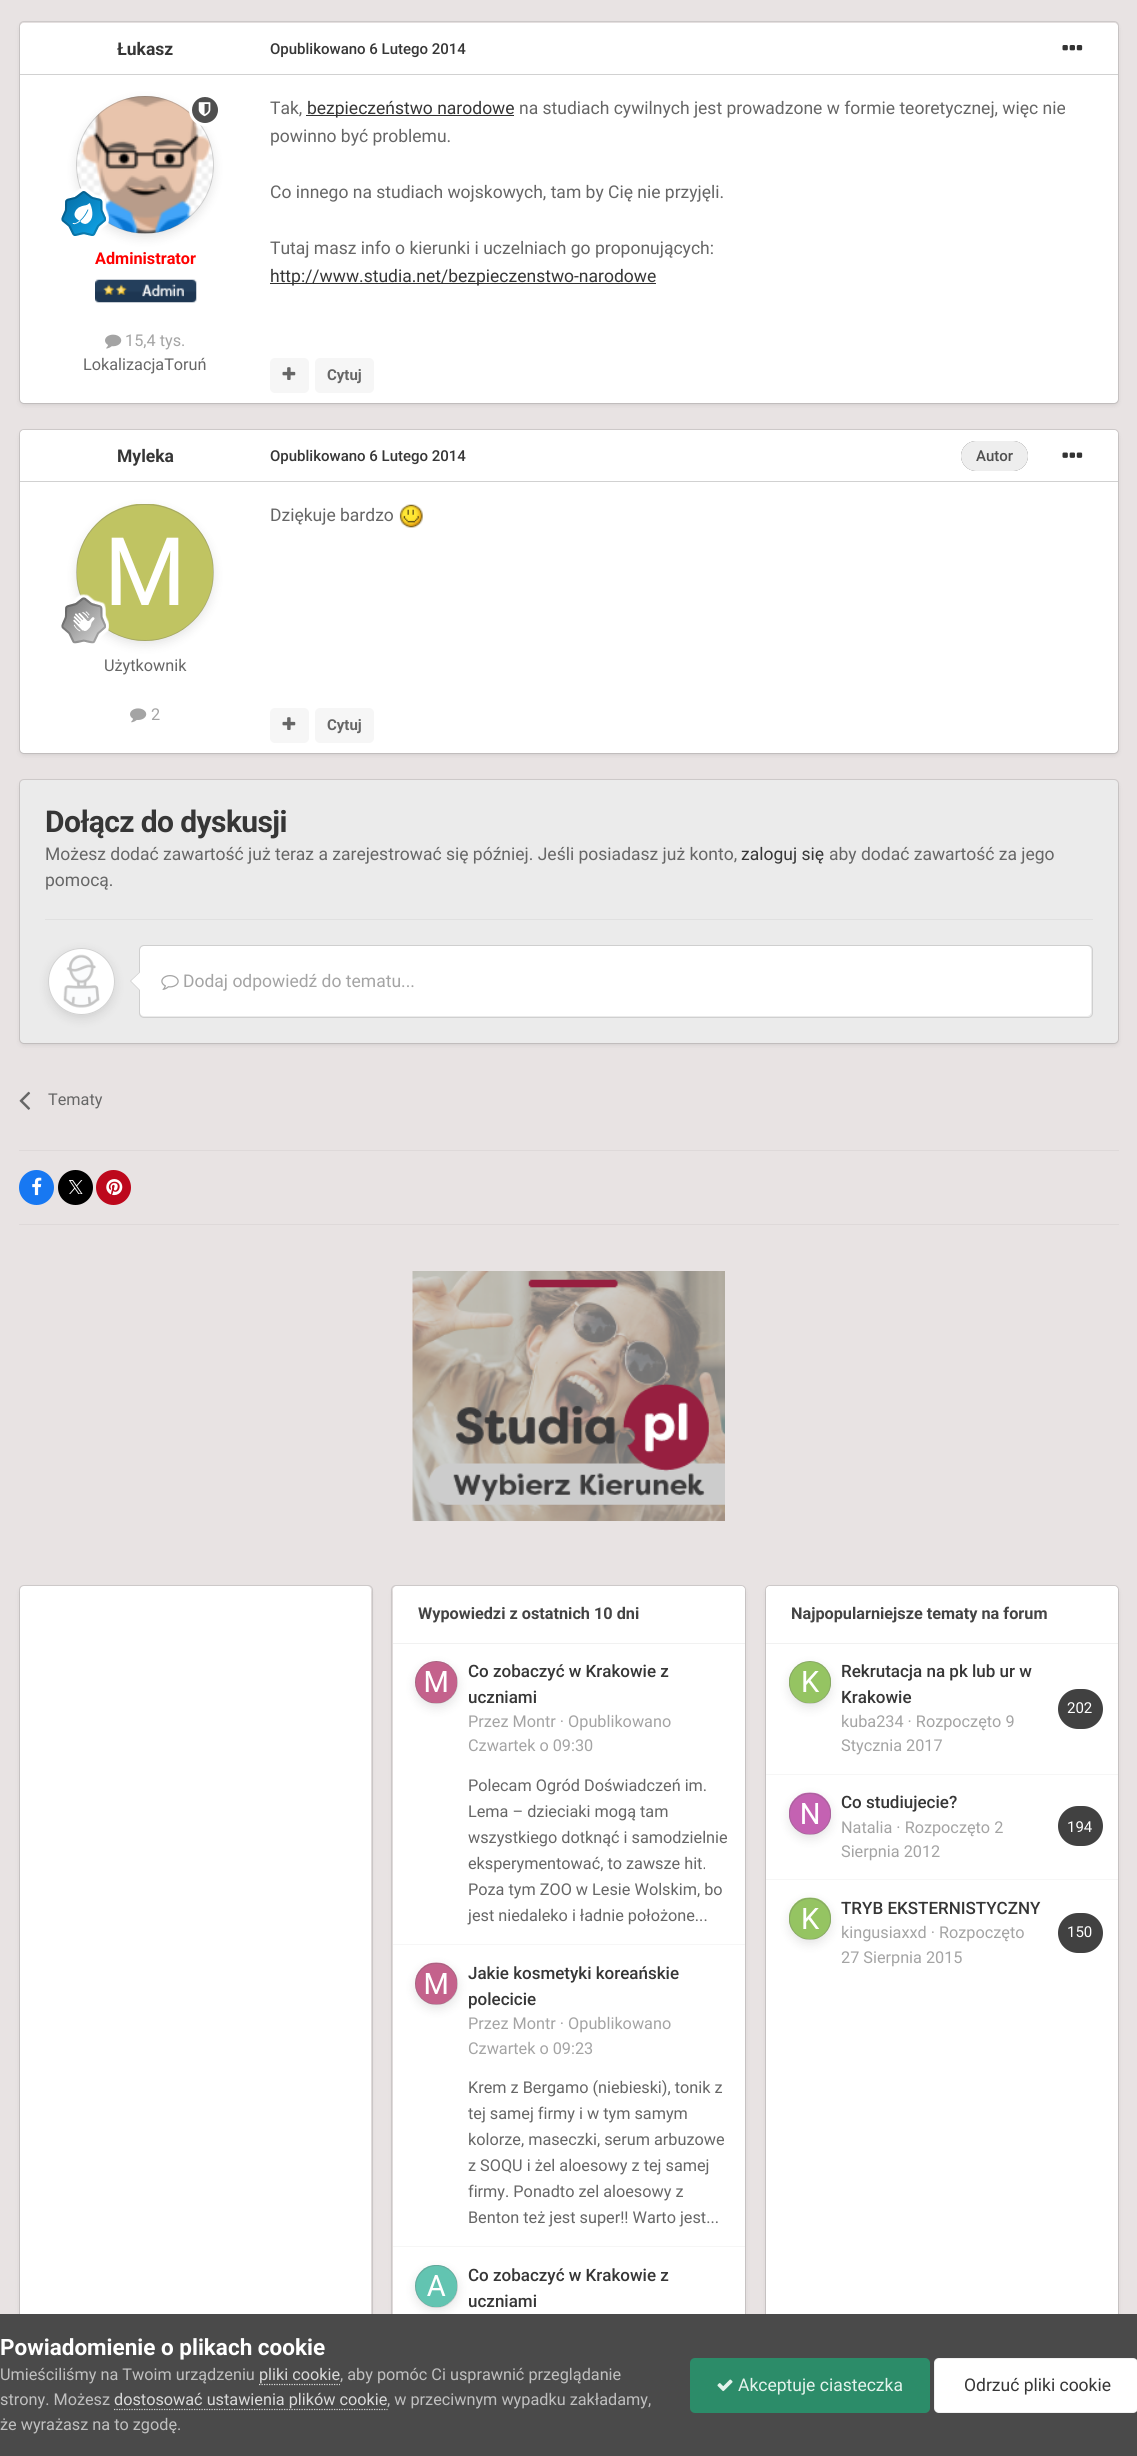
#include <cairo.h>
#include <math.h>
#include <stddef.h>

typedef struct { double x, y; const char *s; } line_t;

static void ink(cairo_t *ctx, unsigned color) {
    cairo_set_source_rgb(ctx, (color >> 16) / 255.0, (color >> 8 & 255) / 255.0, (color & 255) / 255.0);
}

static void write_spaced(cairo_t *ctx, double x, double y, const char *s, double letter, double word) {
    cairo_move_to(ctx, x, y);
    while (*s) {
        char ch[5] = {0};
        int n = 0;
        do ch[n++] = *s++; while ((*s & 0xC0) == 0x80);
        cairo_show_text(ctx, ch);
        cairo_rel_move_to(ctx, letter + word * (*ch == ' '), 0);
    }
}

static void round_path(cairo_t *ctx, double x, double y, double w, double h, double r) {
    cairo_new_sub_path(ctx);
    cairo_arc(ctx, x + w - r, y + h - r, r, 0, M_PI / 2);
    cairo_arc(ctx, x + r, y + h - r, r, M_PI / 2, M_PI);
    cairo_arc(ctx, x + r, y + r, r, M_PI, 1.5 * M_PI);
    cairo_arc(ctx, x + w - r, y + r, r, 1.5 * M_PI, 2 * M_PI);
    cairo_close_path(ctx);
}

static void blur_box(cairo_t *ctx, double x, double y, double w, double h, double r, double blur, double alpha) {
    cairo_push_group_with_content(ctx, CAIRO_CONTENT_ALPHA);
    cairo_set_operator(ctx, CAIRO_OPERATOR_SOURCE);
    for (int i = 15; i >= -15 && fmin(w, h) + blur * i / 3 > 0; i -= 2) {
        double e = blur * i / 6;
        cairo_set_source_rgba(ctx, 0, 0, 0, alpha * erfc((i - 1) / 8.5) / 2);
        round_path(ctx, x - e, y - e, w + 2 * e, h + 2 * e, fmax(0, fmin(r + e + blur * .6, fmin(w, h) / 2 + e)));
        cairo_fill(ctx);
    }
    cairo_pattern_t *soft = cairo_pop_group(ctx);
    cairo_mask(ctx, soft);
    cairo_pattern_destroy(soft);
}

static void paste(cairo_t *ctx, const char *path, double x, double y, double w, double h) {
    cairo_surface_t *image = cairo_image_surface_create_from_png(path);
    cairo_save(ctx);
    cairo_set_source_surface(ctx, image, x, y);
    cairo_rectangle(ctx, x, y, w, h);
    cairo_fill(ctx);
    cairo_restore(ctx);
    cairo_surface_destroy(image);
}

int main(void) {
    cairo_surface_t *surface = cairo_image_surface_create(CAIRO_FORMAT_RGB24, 1137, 2456);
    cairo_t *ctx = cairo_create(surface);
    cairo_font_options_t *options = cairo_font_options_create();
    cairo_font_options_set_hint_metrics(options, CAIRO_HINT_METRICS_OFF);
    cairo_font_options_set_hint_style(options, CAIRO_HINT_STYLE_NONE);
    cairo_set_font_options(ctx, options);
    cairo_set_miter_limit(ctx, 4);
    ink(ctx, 0xE8E3E3);
    cairo_paint(ctx);
    ink(ctx, 0x000000);
    blur_box(ctx, 20, 25, 1098, 380, 4, 2.5, 0.1);
    ink(ctx, 0xFFFFFF);
    round_path(ctx, 20, 23, 1098, 380, 4);
    cairo_fill(ctx);
    round_path(ctx, 19.5, 21.5, 1099, 382, 4.5);
    cairo_set_source_rgba(ctx, 0.4, 0.4, 0.4, 0.2);
    cairo_set_line_width(ctx, 1);
    cairo_stroke(ctx);
    ink(ctx, 0xFFFFFF);
    cairo_new_path(ctx);
    cairo_move_to(ctx, 25, 23);
    cairo_line_to(ctx, 1113, 23);
    cairo_curve_to(ctx, 1116, 23, 1118, 25, 1118, 28);
    cairo_line_to(ctx, 1118, 75);
    cairo_line_to(ctx, 20, 75);
    cairo_line_to(ctx, 20, 28);
    cairo_curve_to(ctx, 20, 25, 22, 23, 25, 23);
    cairo_close_path(ctx);
    cairo_fill(ctx);
    ink(ctx, 0xD1D1D1);
    cairo_rectangle(ctx, 20, 74, 1098, 1);
    cairo_fill(ctx);
    cairo_select_font_face(ctx, "Roboto", CAIRO_FONT_SLANT_NORMAL, CAIRO_FONT_WEIGHT_BOLD);
    cairo_set_font_size(ctx, 17.5);
    ink(ctx, 0x363636);
    cairo_move_to(ctx, 117, 55);
    cairo_show_text(ctx, "Łukasz");
    paste(ctx, "media/1.png", 76, 96, 138, 138);
    cairo_save(ctx);
    cairo_set_fill_rule(ctx, CAIRO_FILL_RULE_EVEN_ODD);
    cairo_new_path(ctx);
    cairo_move_to(ctx, 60, 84);
    cairo_line_to(ctx, 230, 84);
    cairo_line_to(ctx, 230, 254);
    cairo_line_to(ctx, 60, 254);
    cairo_close_path(ctx);
    cairo_move_to(ctx, 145, 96);
    cairo_curve_to(ctx, 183, 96, 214, 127, 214, 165);
    cairo_curve_to(ctx, 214, 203, 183, 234, 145, 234);
    cairo_curve_to(ctx, 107, 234, 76, 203, 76, 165);
    cairo_curve_to(ctx, 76, 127, 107, 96, 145, 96);
    cairo_close_path(ctx);
    cairo_clip(ctx);
    ink(ctx, 0x000000);
    blur_box(ctx, 76, 100, 138, 138, 69, 5, 0.1);
    cairo_restore(ctx);
    cairo_arc(ctx, 145, 165, 68.5, 0, 2 * M_PI);
    cairo_set_source_rgba(ctx, 0.4, 0.4, 0.4, 0.3);
    cairo_stroke(ctx);
    ink(ctx, 0x4F4F4F);
    cairo_arc(ctx, 205, 110, 14.5, 0, 2 * M_PI);
    cairo_fill_preserve(ctx);
    ink(ctx, 0xFFFFFF);
    cairo_set_line_width(ctx, 3);
    cairo_stroke(ctx);
    paste(ctx, "media/2.png", 198, 102, 13, 15);
    paste(ctx, "media/3.png", 61, 188, 48, 48);
    cairo_set_font_size(ctx, 16.25);
    ink(ctx, 0xFF0000);
    cairo_move_to(ctx, 95, 264);
    cairo_show_text(ctx, "Administrator");
    paste(ctx, "media/4.png", 95, 279, 102, 24);
    paste(ctx, "media/5.png", 105, 334, 17, 15);
    cairo_select_font_face(ctx, "Roboto", CAIRO_FONT_SLANT_NORMAL, CAIRO_FONT_WEIGHT_NORMAL);
    ink(ctx, 0xA4A4A4);
    cairo_move_to(ctx, 125, 346);
    cairo_show_text(ctx, "15,4 tys.");
    ink(ctx, 0x666666);
    cairo_move_to(ctx, 83, 370);
    cairo_show_text(ctx, "LokalizacjaToruń");
    cairo_select_font_face(ctx, "Roboto Medium", CAIRO_FONT_SLANT_NORMAL, CAIRO_FONT_WEIGHT_NORMAL);
    cairo_set_font_size(ctx, 15);
    ink(ctx, 0x363636);
    cairo_move_to(ctx, 270, 54);
    cairo_show_text(ctx, "Opublikowano 6 Lutego 2014");
    paste(ctx, "media/6.png", 1062, 45, 21, 6);
    cairo_select_font_face(ctx, "Roboto", CAIRO_FONT_SLANT_NORMAL, CAIRO_FONT_WEIGHT_NORMAL);
    cairo_set_font_size(ctx, 17.5);
    ink(ctx, 0x666666);
    cairo_move_to(ctx, 270, 114);
    cairo_show_text(ctx, "Tak,");
    ink(ctx, 0x313131);
    cairo_rectangle(ctx, 306, 115, 208, 1);
    cairo_fill(ctx);
    ink(ctx, 0x363636);
    cairo_move_to(ctx, 307, 114);
    cairo_show_text(ctx, "bezpieczeństwo narodowe");
    ink(ctx, 0x666666);
    {
        static const line_t items[] = {
            {519, 114, "na studiach cywilnych jest prowadzone w formie teoretycznej, więc nie"},
            {270, 142, "powinno być problemu."},
            {270, 198, "Co innego na studiach wojskowych, tam by Cię nie przyjęli."},
            {270, 254, "Tutaj masz info o kierunki i uczelniach go proponujących:"},
        };
        for (size_t i = 0; i < sizeof items / sizeof *items; i++) {
            cairo_move_to(ctx, items[i].x, items[i].y);
            cairo_show_text(ctx, items[i].s);
        }
    }
    ink(ctx, 0x313131);
    cairo_rectangle(ctx, 270, 283, 386, 1);
    cairo_fill(ctx);
    ink(ctx, 0x363636);
    cairo_move_to(ctx, 270, 282);
    cairo_show_text(ctx, "http://www.studia.net/bezpieczenstwo-narodowe");
    ink(ctx, 0xF6F6F6);
    round_path(ctx, 270, 358, 39, 35, 5);
    cairo_fill(ctx);
    paste(ctx, "media/7.png", 282, 367, 14, 13);
    round_path(ctx, 315, 358, 59, 35, 5);
    cairo_fill(ctx);
    cairo_select_font_face(ctx, "Roboto", CAIRO_FONT_SLANT_NORMAL, CAIRO_FONT_WEIGHT_BOLD);
    cairo_set_font_size(ctx, 15);
    ink(ctx, 0x666666);
    cairo_move_to(ctx, 327, 380);
    cairo_show_text(ctx, "Cytuj");
    ink(ctx, 0x000000);
    blur_box(ctx, 20, 433, 1098, 322, 4, 2.5, 0.1);
    ink(ctx, 0xFFFFFF);
    round_path(ctx, 20, 430, 1098, 323, 4);
    cairo_fill(ctx);
    round_path(ctx, 19.5, 429.5, 1099, 324, 4.5);
    cairo_set_source_rgba(ctx, 0.4, 0.4, 0.4, 0.2);
    cairo_set_line_width(ctx, 1);
    cairo_stroke(ctx);
    ink(ctx, 0xFFFFFF);
    cairo_new_path(ctx);
    cairo_move_to(ctx, 25, 430);
    cairo_line_to(ctx, 1113, 430);
    cairo_curve_to(ctx, 1116, 430, 1118, 432, 1118, 435);
    cairo_line_to(ctx, 1118, 483);
    cairo_line_to(ctx, 20, 483);
    cairo_line_to(ctx, 20, 435);
    cairo_curve_to(ctx, 20, 432, 22, 430, 25, 430);
    cairo_close_path(ctx);
    cairo_fill(ctx);
    ink(ctx, 0xD1D1D1);
    cairo_rectangle(ctx, 20, 481, 1098, 1);
    cairo_fill(ctx);
    cairo_set_font_size(ctx, 17.5);
    ink(ctx, 0x363636);
    cairo_move_to(ctx, 117, 462);
    cairo_show_text(ctx, "Myleka");
    paste(ctx, "media/8.png", 76, 504, 138, 137);
    cairo_save(ctx);
    cairo_set_fill_rule(ctx, CAIRO_FILL_RULE_EVEN_ODD);
    cairo_new_path(ctx);
    cairo_move_to(ctx, 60, 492);
    cairo_line_to(ctx, 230, 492);
    cairo_line_to(ctx, 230, 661);
    cairo_line_to(ctx, 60, 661);
    cairo_close_path(ctx);
    cairo_move_to(ctx, 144.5, 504);
    cairo_line_to(ctx, 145.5, 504);
    cairo_curve_to(ctx, 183.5, 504, 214, 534.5, 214, 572.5);
    cairo_curve_to(ctx, 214, 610.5, 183.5, 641, 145.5, 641);
    cairo_line_to(ctx, 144.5, 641);
    cairo_curve_to(ctx, 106.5, 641, 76, 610.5, 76, 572.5);
    cairo_curve_to(ctx, 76, 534.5, 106.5, 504, 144.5, 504);
    cairo_close_path(ctx);
    cairo_clip(ctx);
    ink(ctx, 0x000000);
    blur_box(ctx, 76, 508, 138, 137, 68.5, 5, 0.1);
    cairo_restore(ctx);
    round_path(ctx, 76.5, 504.5, 137, 136, 68);
    cairo_set_source_rgba(ctx, 0.4, 0.4, 0.4, 0.3);
    cairo_stroke(ctx);
    paste(ctx, "media/9.png", 61, 594, 48, 50);
    cairo_select_font_face(ctx, "Roboto", CAIRO_FONT_SLANT_NORMAL, CAIRO_FONT_WEIGHT_NORMAL);
    cairo_set_font_size(ctx, 16.25);
    ink(ctx, 0x666666);
    cairo_move_to(ctx, 104, 671);
    cairo_show_text(ctx, "Użytkownik");
    paste(ctx, "media/10.png", 130, 708, 17, 15);
    ink(ctx, 0xA4A4A4);
    cairo_move_to(ctx, 151, 720);
    cairo_show_text(ctx, "2");
    cairo_select_font_face(ctx, "Roboto Medium", CAIRO_FONT_SLANT_NORMAL, CAIRO_FONT_WEIGHT_NORMAL);
    cairo_set_font_size(ctx, 15);
    ink(ctx, 0x363636);
    cairo_move_to(ctx, 270, 461);
    cairo_show_text(ctx, "Opublikowano 6 Lutego 2014");
    ink(ctx, 0x4F4F4F);
    round_path(ctx, 961, 441, 67, 30, 15);
    cairo_fill(ctx);
    cairo_set_source_rgba(ctx, 1, 1, 1, 0.9);
    round_path(ctx, 961, 441, 67, 30, 15);
    cairo_fill(ctx);
    ink(ctx, 0x4F4F4F);
    cairo_move_to(ctx, 976, 461);
    cairo_show_text(ctx, "Autor");
    paste(ctx, "media/11.png", 1062, 452, 21, 6);
    cairo_select_font_face(ctx, "Roboto", CAIRO_FONT_SLANT_NORMAL, CAIRO_FONT_WEIGHT_NORMAL);
    cairo_set_font_size(ctx, 17.5);
    ink(ctx, 0x666666);
    cairo_move_to(ctx, 270, 521);
    cairo_show_text(ctx, "Dziękuje bardzo");
    paste(ctx, "media/12.png", 399, 504, 24, 24);
    ink(ctx, 0xF6F6F6);
    round_path(ctx, 270, 708, 39, 35, 5);
    cairo_fill(ctx);
    paste(ctx, "media/7.png", 282, 717, 14, 13);
    round_path(ctx, 315, 708, 59, 35, 5);
    cairo_fill(ctx);
    cairo_select_font_face(ctx, "Roboto", CAIRO_FONT_SLANT_NORMAL, CAIRO_FONT_WEIGHT_BOLD);
    cairo_set_font_size(ctx, 15);
    ink(ctx, 0x666666);
    cairo_move_to(ctx, 327, 730);
    cairo_show_text(ctx, "Cytuj");
    ink(ctx, 0x000000);
    blur_box(ctx, 20, 783, 1098, 262, 4, 2.5, 0.1);
    ink(ctx, 0xEBEBEB);
    round_path(ctx, 20, 780, 1098, 263, 4);
    cairo_fill(ctx);
    round_path(ctx, 19.5, 779.5, 1099, 264, 4.5);
    cairo_set_source_rgba(ctx, 0.4, 0.4, 0.4, 0.2);
    cairo_stroke(ctx);
    ink(ctx, 0xE0E0E0);
    cairo_rectangle(ctx, 45, 919, 1048, 1);
    cairo_fill(ctx);
    cairo_set_font_size(ctx, 30);
    ink(ctx, 0x363636);
    write_spaced(ctx, 45, 832, "Dołącz do dyskusji", -0.6, 0);
    cairo_select_font_face(ctx, "Roboto", CAIRO_FONT_SLANT_NORMAL, CAIRO_FONT_WEIGHT_NORMAL);
    cairo_set_font_size(ctx, 17.5);
    ink(ctx, 0x666666);
    cairo_move_to(ctx, 45, 860);
    cairo_show_text(ctx, "Możesz dodać zawartość już teraz a zarejestrować się później. Jeśli posiadasz już konto,");
    ink(ctx, 0x363636);
    cairo_move_to(ctx, 741, 860);
    cairo_show_text(ctx, "zaloguj się");
    ink(ctx, 0x666666);
    cairo_move_to(ctx, 829, 860);
    cairo_show_text(ctx, "aby dodać zawartość za jego");
    cairo_move_to(ctx, 45, 886);
    cairo_show_text(ctx, "pomocą.");
    ink(ctx, 0xFFFFFF);
    cairo_new_path(ctx);
    cairo_arc(ctx, 81.5, 981.5, 33.5, 0, 2 * M_PI);
    cairo_fill(ctx);
    paste(ctx, "media/13.png", 63, 954, 37, 54);
    cairo_save(ctx);
    cairo_set_fill_rule(ctx, CAIRO_FILL_RULE_EVEN_ODD);
    cairo_new_path(ctx);
    cairo_move_to(ctx, 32, 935);
    cairo_line_to(ctx, 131, 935);
    cairo_line_to(ctx, 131, 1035);
    cairo_line_to(ctx, 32, 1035);
    cairo_close_path(ctx);
    cairo_move_to(ctx, 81.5, 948);
    cairo_curve_to(ctx, 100, 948, 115, 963, 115, 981.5);
    cairo_curve_to(ctx, 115, 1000, 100, 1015, 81.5, 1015);
    cairo_curve_to(ctx, 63, 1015, 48, 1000, 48, 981.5);
    cairo_curve_to(ctx, 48, 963, 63, 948, 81.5, 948);
    cairo_close_path(ctx);
    cairo_clip(ctx);
    ink(ctx, 0x000000);
    blur_box(ctx, 48, 951, 67, 68, 33.5, 5, 0.1);
    cairo_restore(ctx);
    cairo_arc(ctx, 81.5, 981.5, 33, 0, 2 * M_PI);
    cairo_set_source_rgba(ctx, 0.4, 0.4, 0.4, 0.3);
    cairo_stroke(ctx);
    ink(ctx, 0xFFFFFF);
    round_path(ctx, 140, 946, 951, 70, 4);
    cairo_fill(ctx);
    round_path(ctx, 139.5, 945.5, 953, 72, 4.5);
    ink(ctx, 0xCFCFCF);
    cairo_stroke(ctx);
    cairo_new_path(ctx);
    cairo_move_to(ctx, 139, 972.5);
    cairo_line_to(ctx, 139, 990);
    cairo_line_to(ctx, 130, 981);
    cairo_close_path(ctx);
    cairo_fill(ctx);
    ink(ctx, 0xFFFFFF);
    cairo_new_path(ctx);
    cairo_move_to(ctx, 140, 972.5);
    cairo_line_to(ctx, 140, 990);
    cairo_line_to(ctx, 131, 981);
    cairo_close_path(ctx);
    cairo_fill(ctx);
    paste(ctx, "media/14.png", 161, 975, 18, 15);
    ink(ctx, 0xA4A4A4);
    cairo_move_to(ctx, 183, 987);
    cairo_show_text(ctx, "Dodaj odpowiedź do tematu...");
    paste(ctx, "media/15.png", 19, 1091, 12, 19);
    cairo_set_font_size(ctx, 16.25);
    ink(ctx, 0x666666);
    cairo_move_to(ctx, 48, 1105);
    cairo_show_text(ctx, "Tematy");
    ink(ctx, 0xDED9D9);
    cairo_rectangle(ctx, 19, 1150, 1100, 1);
    cairo_fill(ctx);
    ink(ctx, 0x1778F2);
    cairo_arc(ctx, 36.5, 1187.5, 17.5, 0, 2 * M_PI);
    cairo_fill(ctx);
    paste(ctx, "media/16.png", 32, 1177, 10, 19);
    ink(ctx, 0x000000);
    cairo_arc(ctx, 75.5, 1187.5, 17.5, 0, 2 * M_PI);
    cairo_fill(ctx);
    paste(ctx, "media/17.png", 69, 1180, 14, 14);
    ink(ctx, 0xBD081C);
    cairo_arc(ctx, 113.5, 1187.5, 17.5, 0, 2 * M_PI);
    cairo_fill(ctx);
    paste(ctx, "media/18.png", 106, 1179, 17, 17);
    ink(ctx, 0xDED9D9);
    cairo_rectangle(ctx, 19, 1224, 1100, 1);
    cairo_fill(ctx);
    paste(ctx, "media/19.png", 412, 1271, 313, 250);
    ink(ctx, 0x000000);
    blur_box(ctx, 20, 1589, 351, 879, 4, 2.5, 0.1);
    ink(ctx, 0xFFFFFF);
    round_path(ctx, 20, 1586, 351, 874, 4);
    cairo_fill(ctx);
    round_path(ctx, 19.5, 1585.5, 353, 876, 4.5);
    cairo_set_source_rgba(ctx, 0.4, 0.4, 0.4, 0.2);
    cairo_stroke(ctx);
    ink(ctx, 0x000000);
    blur_box(ctx, 393, 1589, 352, 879, 4, 2.5, 0.1);
    ink(ctx, 0xFFFFFF);
    round_path(ctx, 393, 1586, 352, 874, 4);
    cairo_fill(ctx);
    round_path(ctx, 391.5, 1585.5, 354, 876, 4.5);
    cairo_set_source_rgba(ctx, 0.4, 0.4, 0.4, 0.2);
    cairo_stroke(ctx);
    ink(ctx, 0xFFFFFF);
    cairo_new_path(ctx);
    cairo_move_to(ctx, 398, 1586);
    cairo_line_to(ctx, 740, 1586);
    cairo_curve_to(ctx, 743, 1586, 745, 1588, 745, 1591);
    cairo_line_to(ctx, 745, 1644);
    cairo_line_to(ctx, 393, 1644);
    cairo_line_to(ctx, 393, 1591);
    cairo_curve_to(ctx, 393, 1588, 395, 1586, 398, 1586);
    cairo_close_path(ctx);
    cairo_fill(ctx);
    ink(ctx, 0xF1F1F1);
    cairo_rectangle(ctx, 393, 1643, 352, 1);
    cairo_fill(ctx);
    cairo_select_font_face(ctx, "Roboto", CAIRO_FONT_SLANT_NORMAL, CAIRO_FONT_WEIGHT_BOLD);
    ink(ctx, 0x444444);
    cairo_move_to(ctx, 418, 1619);
    cairo_show_text(ctx, "Wypowiedzi z ostatnich 10 dni");
    ink(ctx, 0xF6F6F6);
    cairo_rectangle(ctx, 393, 1944, 352, 1);
    cairo_fill(ctx);
    paste(ctx, "media/20.png", 415, 1661, 43, 43);
    cairo_save(ctx);
    cairo_set_fill_rule(ctx, CAIRO_FILL_RULE_EVEN_ODD);
    cairo_new_path(ctx);
    cairo_move_to(ctx, 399, 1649);
    cairo_line_to(ctx, 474, 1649);
    cairo_line_to(ctx, 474, 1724);
    cairo_line_to(ctx, 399, 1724);
    cairo_close_path(ctx);
    cairo_move_to(ctx, 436.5, 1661);
    cairo_curve_to(ctx, 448.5, 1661, 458, 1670.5, 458, 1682.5);
    cairo_curve_to(ctx, 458, 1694.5, 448.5, 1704, 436.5, 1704);
    cairo_curve_to(ctx, 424.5, 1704, 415, 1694.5, 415, 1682.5);
    cairo_curve_to(ctx, 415, 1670.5, 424.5, 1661, 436.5, 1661);
    cairo_close_path(ctx);
    cairo_clip(ctx);
    ink(ctx, 0x000000);
    blur_box(ctx, 415, 1665, 43, 43, 21.5, 5, 0.1);
    cairo_restore(ctx);
    cairo_arc(ctx, 436.5, 1682.5, 21, 0, 2 * M_PI);
    cairo_set_source_rgba(ctx, 0.4, 0.4, 0.4, 0.3);
    cairo_stroke(ctx);
    cairo_select_font_face(ctx, "Roboto Medium", CAIRO_FONT_SLANT_NORMAL, CAIRO_FONT_WEIGHT_NORMAL);
    cairo_set_font_size(ctx, 17);
    ink(ctx, 0x363636);
    cairo_move_to(ctx, 468, 1677);
    cairo_show_text(ctx, "Co zobaczyć w Krakowie z");
    cairo_move_to(ctx, 468, 1703);
    cairo_show_text(ctx, "uczniami");
    cairo_select_font_face(ctx, "Roboto", CAIRO_FONT_SLANT_NORMAL, CAIRO_FONT_WEIGHT_NORMAL);
    cairo_set_font_size(ctx, 16.25);
    ink(ctx, 0xA4A4A4);
    cairo_move_to(ctx, 468, 1727);
    cairo_show_text(ctx, "Przez Montr · Opublikowano");
    cairo_move_to(ctx, 468, 1751);
    cairo_show_text(ctx, "Czwartek o 09:30");
    ink(ctx, 0x666666);
    {
        static const line_t items[] = {
            {468, 1791, "Polecam Ogród Doświadczeń im."},
            {468, 1817, "Lema – dzieciaki mogą tam"},
            {468, 1843, "wszystkiego dotknąć i samodzielnie"},
            {468, 1869, "eksperymentować, to zawsze hit."},
            {468, 1895, "Poza tym ZOO w Lesie Wolskim, bo"},
            {468, 1921, "jest niedaleko i ładnie położone..."},
        };
        for (size_t i = 0; i < sizeof items / sizeof *items; i++) {
            cairo_move_to(ctx, items[i].x, items[i].y);
            cairo_show_text(ctx, items[i].s);
        }
    }
    ink(ctx, 0xF6F6F6);
    cairo_rectangle(ctx, 393, 2246, 352, 1);
    cairo_fill(ctx);
    paste(ctx, "media/21.png", 415, 1962, 43, 43);
    cairo_save(ctx);
    cairo_set_fill_rule(ctx, CAIRO_FILL_RULE_EVEN_ODD);
    cairo_new_path(ctx);
    cairo_move_to(ctx, 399, 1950);
    cairo_line_to(ctx, 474, 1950);
    cairo_line_to(ctx, 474, 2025);
    cairo_line_to(ctx, 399, 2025);
    cairo_close_path(ctx);
    cairo_move_to(ctx, 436, 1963);
    cairo_line_to(ctx, 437, 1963);
    cairo_curve_to(ctx, 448.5, 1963, 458, 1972.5, 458, 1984);
    cairo_curve_to(ctx, 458, 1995.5, 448.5, 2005, 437, 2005);
    cairo_line_to(ctx, 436, 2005);
    cairo_curve_to(ctx, 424.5, 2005, 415, 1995.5, 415, 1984);
    cairo_curve_to(ctx, 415, 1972.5, 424.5, 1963, 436, 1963);
    cairo_close_path(ctx);
    cairo_clip(ctx);
    ink(ctx, 0x000000);
    blur_box(ctx, 415, 1966, 43, 43, 21.5, 5, 0.1);
    cairo_restore(ctx);
    round_path(ctx, 415.5, 1963.5, 42, 41, 20.5);
    cairo_set_source_rgba(ctx, 0.4, 0.4, 0.4, 0.3);
    cairo_stroke(ctx);
    cairo_select_font_face(ctx, "Roboto Medium", CAIRO_FONT_SLANT_NORMAL, CAIRO_FONT_WEIGHT_NORMAL);
    cairo_set_font_size(ctx, 17);
    ink(ctx, 0x363636);
    cairo_move_to(ctx, 468, 1979);
    cairo_show_text(ctx, "Jakie kosmetyki koreańskie");
    cairo_move_to(ctx, 468, 2005);
    cairo_show_text(ctx, "polecicie");
    cairo_select_font_face(ctx, "Roboto", CAIRO_FONT_SLANT_NORMAL, CAIRO_FONT_WEIGHT_NORMAL);
    cairo_set_font_size(ctx, 16.25);
    ink(ctx, 0xA4A4A4);
    cairo_move_to(ctx, 468, 2029);
    cairo_show_text(ctx, "Przez Montr · Opublikowano");
    cairo_move_to(ctx, 468, 2054);
    cairo_show_text(ctx, "Czwartek o 09:23");
    ink(ctx, 0x666666);
    {
        static const line_t items[] = {
            {468, 2093, "Krem z Bergamo (niebieski), tonik z"},
            {468, 2119, "tej samej firmy i w tym samym"},
            {468, 2145, "kolorze, maseczki, serum arbuzowe"},
            {468, 2171, "z SOQU i żel aloesowy z tej samej"},
            {468, 2197, "firmy. Ponadto zel aloesowy z"},
            {468, 2223, "Benton też jest super!! Warto jest..."},
        };
        for (size_t i = 0; i < sizeof items / sizeof *items; i++) {
            cairo_move_to(ctx, items[i].x, items[i].y);
            cairo_show_text(ctx, items[i].s);
        }
    }
    paste(ctx, "media/22.png", 415, 2265, 43, 42);
    cairo_save(ctx);
    cairo_set_fill_rule(ctx, CAIRO_FILL_RULE_EVEN_ODD);
    cairo_new_path(ctx);
    cairo_move_to(ctx, 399, 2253);
    cairo_line_to(ctx, 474, 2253);
    cairo_line_to(ctx, 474, 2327);
    cairo_line_to(ctx, 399, 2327);
    cairo_close_path(ctx);
    cairo_move_to(ctx, 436.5, 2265);
    cairo_curve_to(ctx, 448.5, 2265, 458, 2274.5, 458, 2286.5);
    cairo_curve_to(ctx, 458, 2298.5, 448.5, 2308, 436.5, 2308);
    cairo_curve_to(ctx, 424.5, 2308, 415, 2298.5, 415, 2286.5);
    cairo_curve_to(ctx, 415, 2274.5, 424.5, 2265, 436.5, 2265);
    cairo_close_path(ctx);
    cairo_clip(ctx);
    ink(ctx, 0x000000);
    blur_box(ctx, 415, 2269, 43, 42, 21, 5, 0.1);
    cairo_restore(ctx);
    cairo_arc(ctx, 436.5, 2286.5, 21, 0, 2 * M_PI);
    cairo_set_source_rgba(ctx, 0.4, 0.4, 0.4, 0.3);
    cairo_stroke(ctx);
    cairo_select_font_face(ctx, "Roboto Medium", CAIRO_FONT_SLANT_NORMAL, CAIRO_FONT_WEIGHT_NORMAL);
    cairo_set_font_size(ctx, 17);
    ink(ctx, 0x363636);
    cairo_move_to(ctx, 468, 2281);
    cairo_show_text(ctx, "Co zobaczyć w Krakowie z");
    cairo_move_to(ctx, 468, 2307);
    cairo_show_text(ctx, "uczniami");
    ink(ctx, 0x000000);
    blur_box(ctx, 766, 1589, 352, 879, 4, 2.5, 0.1);
    ink(ctx, 0xFFFFFF);
    round_path(ctx, 766, 1586, 352, 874, 4);
    cairo_fill(ctx);
    round_path(ctx, 765.5, 1585.5, 353, 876, 4.5);
    cairo_set_source_rgba(ctx, 0.4, 0.4, 0.4, 0.2);
    cairo_stroke(ctx);
    ink(ctx, 0xFFFFFF);
    cairo_new_path(ctx);
    cairo_move_to(ctx, 771, 1586);
    cairo_line_to(ctx, 1113, 1586);
    cairo_curve_to(ctx, 1116, 1586, 1118, 1588, 1118, 1591);
    cairo_line_to(ctx, 1118, 1644);
    cairo_line_to(ctx, 766, 1644);
    cairo_line_to(ctx, 766, 1591);
    cairo_curve_to(ctx, 766, 1588, 768, 1586, 771, 1586);
    cairo_close_path(ctx);
    cairo_fill(ctx);
    ink(ctx, 0xF1F1F1);
    cairo_rectangle(ctx, 766, 1643, 352, 1);
    cairo_fill(ctx);
    cairo_select_font_face(ctx, "Roboto", CAIRO_FONT_SLANT_NORMAL, CAIRO_FONT_WEIGHT_BOLD);
    cairo_set_font_size(ctx, 16.25);
    ink(ctx, 0x444444);
    cairo_move_to(ctx, 791, 1619);
    cairo_show_text(ctx, "Najpopularniejsze tematy na forum");
    ink(ctx, 0xF6F6F6);
    cairo_rectangle(ctx, 766, 1774, 352, 1);
    cairo_fill(ctx);
    paste(ctx, "media/23.png", 789, 1661, 42, 43);
    cairo_save(ctx);
    cairo_set_fill_rule(ctx, CAIRO_FILL_RULE_EVEN_ODD);
    cairo_new_path(ctx);
    cairo_move_to(ctx, 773, 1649);
    cairo_line_to(ctx, 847, 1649);
    cairo_line_to(ctx, 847, 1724);
    cairo_line_to(ctx, 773, 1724);
    cairo_close_path(ctx);
    cairo_move_to(ctx, 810, 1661);
    cairo_curve_to(ctx, 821.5, 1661, 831, 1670.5, 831, 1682);
    cairo_line_to(ctx, 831, 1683);
    cairo_curve_to(ctx, 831, 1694.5, 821.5, 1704, 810, 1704);
    cairo_curve_to(ctx, 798.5, 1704, 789, 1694.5, 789, 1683);
    cairo_line_to(ctx, 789, 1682);
    cairo_curve_to(ctx, 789, 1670.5, 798.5, 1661, 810, 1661);
    cairo_close_path(ctx);
    cairo_clip(ctx);
    ink(ctx, 0x000000);
    blur_box(ctx, 789, 1665, 42, 43, 21, 5, 0.1);
    cairo_restore(ctx);
    round_path(ctx, 789.5, 1661.5, 41, 42, 20.5);
    cairo_set_source_rgba(ctx, 0.4, 0.4, 0.4, 0.3);
    cairo_stroke(ctx);
    cairo_select_font_face(ctx, "Roboto Medium", CAIRO_FONT_SLANT_NORMAL, CAIRO_FONT_WEIGHT_NORMAL);
    cairo_set_font_size(ctx, 17);
    ink(ctx, 0x363636);
    cairo_move_to(ctx, 841, 1677);
    cairo_show_text(ctx, "Rekrutacja na pk lub ur w");
    cairo_move_to(ctx, 841, 1703);
    cairo_show_text(ctx, "Krakowie");
    ink(ctx, 0x414141);
    round_path(ctx, 1058, 1689, 45, 40, 20);
    cairo_fill(ctx);
    cairo_select_font_face(ctx, "Roboto", CAIRO_FONT_SLANT_NORMAL, CAIRO_FONT_WEIGHT_NORMAL);
    cairo_set_font_size(ctx, 15);
    ink(ctx, 0xFFFFFF);
    cairo_move_to(ctx, 1067, 1713);
    cairo_show_text(ctx, "202");
    cairo_set_font_size(ctx, 16.25);
    ink(ctx, 0xA4A4A4);
    cairo_move_to(ctx, 841, 1727);
    cairo_show_text(ctx, "kuba234 · Rozpoczęto 9");
    cairo_move_to(ctx, 841, 1751);
    cairo_show_text(ctx, "Stycznia 2017");
    ink(ctx, 0xF6F6F6);
    cairo_rectangle(ctx, 766, 1879, 352, 1);
    cairo_fill(ctx);
    paste(ctx, "media/24.png", 789, 1792, 42, 43);
    cairo_save(ctx);
    cairo_set_fill_rule(ctx, CAIRO_FILL_RULE_EVEN_ODD);
    cairo_new_path(ctx);
    cairo_move_to(ctx, 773, 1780);
    cairo_line_to(ctx, 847, 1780);
    cairo_line_to(ctx, 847, 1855);
    cairo_line_to(ctx, 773, 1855);
    cairo_close_path(ctx);
    cairo_move_to(ctx, 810, 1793);
    cairo_curve_to(ctx, 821.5, 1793, 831, 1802.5, 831, 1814);
    cairo_curve_to(ctx, 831, 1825.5, 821.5, 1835, 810, 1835);
    cairo_curve_to(ctx, 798.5, 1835, 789, 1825.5, 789, 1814);
    cairo_curve_to(ctx, 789, 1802.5, 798.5, 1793, 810, 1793);
    cairo_close_path(ctx);
    cairo_clip(ctx);
    ink(ctx, 0x000000);
    blur_box(ctx, 789, 1796, 42, 43, 21, 5, 0.1);
    cairo_restore(ctx);
    cairo_arc(ctx, 810, 1814, 20.5, 0, 2 * M_PI);
    cairo_set_source_rgba(ctx, 0.4, 0.4, 0.4, 0.3);
    cairo_stroke(ctx);
    cairo_select_font_face(ctx, "Roboto Medium", CAIRO_FONT_SLANT_NORMAL, CAIRO_FONT_WEIGHT_NORMAL);
    cairo_set_font_size(ctx, 17);
    ink(ctx, 0x363636);
    cairo_move_to(ctx, 841, 1808);
    cairo_show_text(ctx, "Co studiujecie?");
    cairo_select_font_face(ctx, "Roboto", CAIRO_FONT_SLANT_NORMAL, CAIRO_FONT_WEIGHT_NORMAL);
    cairo_set_font_size(ctx, 16.25);
    ink(ctx, 0xA4A4A4);
    cairo_move_to(ctx, 841, 1833);
    cairo_show_text(ctx, "Natalia · Rozpoczęto 2");
    cairo_move_to(ctx, 841, 1857);
    cairo_show_text(ctx, "Sierpnia 2012");
    ink(ctx, 0x414141);
    round_path(ctx, 1058, 1806, 45, 40, 20);
    cairo_fill(ctx);
    cairo_set_font_size(ctx, 15);
    ink(ctx, 0xFFFFFF);
    cairo_move_to(ctx, 1067, 1832);
    cairo_show_text(ctx, "194");
    paste(ctx, "media/25.png", 789, 1897, 42, 43);
    cairo_save(ctx);
    cairo_set_fill_rule(ctx, CAIRO_FILL_RULE_EVEN_ODD);
    cairo_new_path(ctx);
    cairo_move_to(ctx, 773, 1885);
    cairo_line_to(ctx, 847, 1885);
    cairo_line_to(ctx, 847, 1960);
    cairo_line_to(ctx, 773, 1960);
    cairo_close_path(ctx);
    cairo_move_to(ctx, 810, 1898);
    cairo_curve_to(ctx, 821.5, 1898, 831, 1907.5, 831, 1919);
    cairo_curve_to(ctx, 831, 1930.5, 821.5, 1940, 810, 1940);
    cairo_curve_to(ctx, 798.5, 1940, 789, 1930.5, 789, 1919);
    cairo_curve_to(ctx, 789, 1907.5, 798.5, 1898, 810, 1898);
    cairo_close_path(ctx);
    cairo_clip(ctx);
    ink(ctx, 0x000000);
    blur_box(ctx, 789, 1901, 42, 43, 21, 5, 0.1);
    cairo_restore(ctx);
    cairo_arc(ctx, 810, 1919, 20.5, 0, 2 * M_PI);
    cairo_set_source_rgba(ctx, 0.4, 0.4, 0.4, 0.3);
    cairo_stroke(ctx);
    cairo_select_font_face(ctx, "Roboto Medium", CAIRO_FONT_SLANT_NORMAL, CAIRO_FONT_WEIGHT_NORMAL);
    cairo_set_font_size(ctx, 17);
    ink(ctx, 0x363636);
    cairo_move_to(ctx, 841, 1914);
    cairo_show_text(ctx, "TRYB EKSTERNISTYCZNY");
    cairo_select_font_face(ctx, "Roboto", CAIRO_FONT_SLANT_NORMAL, CAIRO_FONT_WEIGHT_NORMAL);
    cairo_set_font_size(ctx, 16.25);
    ink(ctx, 0xA4A4A4);
    cairo_move_to(ctx, 841, 1938);
    cairo_show_text(ctx, "kingusiaxxd · Rozpoczęto");
    cairo_move_to(ctx, 841, 1963);
    cairo_show_text(ctx, "27 Sierpnia 2015");
    ink(ctx, 0x414141);
    round_path(ctx, 1058, 1913, 45, 40, 20);
    cairo_fill(ctx);
    cairo_set_font_size(ctx, 15);
    ink(ctx, 0xFFFFFF);
    cairo_move_to(ctx, 1067, 1937);
    cairo_show_text(ctx, "150");
    ink(ctx, 0x4A4A4A);
    cairo_rectangle(ctx, 0, 2314, 1137, 142);
    cairo_fill(ctx);
    cairo_select_font_face(ctx, "Roboto", CAIRO_FONT_SLANT_NORMAL, CAIRO_FONT_WEIGHT_BOLD);
    cairo_set_font_size(ctx, 22.5);
    ink(ctx, 0xFFFFFF);
    cairo_move_to(ctx, 0, 2355);
    cairo_show_text(ctx, "Powiadomienie o plikach cookie");
    cairo_select_font_face(ctx, "Roboto", CAIRO_FONT_SLANT_NORMAL, CAIRO_FONT_WEIGHT_NORMAL);
    cairo_set_font_size(ctx, 16.25);
    ink(ctx, 0xC0C0C0);
    cairo_move_to(ctx, 0, 2380);
    cairo_show_text(ctx, "Umieściliśmy na Twoim urządzeniu");
    cairo_new_path(ctx);
    cairo_move_to(ctx, 259, 2384.5);
    cairo_line_to(ctx, 340, 2384.5);
    ink(ctx, 0xDADADA);
    cairo_set_line_width(ctx, 1.2);
    cairo_set_dash(ctx, (double[]){1.25, 1.25}, 2, 0);
    cairo_stroke(ctx);
    cairo_move_to(ctx, 259, 2380);
    cairo_show_text(ctx, "pliki cookie");
    ink(ctx, 0xC0C0C0);
    cairo_move_to(ctx, 340, 2380);
    cairo_show_text(ctx, ", aby pomóc Ci usprawnić przeglądanie");
    cairo_move_to(ctx, 0, 2405);
    cairo_show_text(ctx, "strony. Możesz");
    cairo_new_path(ctx);
    cairo_move_to(ctx, 114, 2409.5);
    cairo_line_to(ctx, 387.5, 2409.5);
    ink(ctx, 0xDADADA);
    cairo_stroke(ctx);
    cairo_move_to(ctx, 114, 2405);
    cairo_show_text(ctx, "dostosować ustawienia plików cookie");
    ink(ctx, 0xC0C0C0);
    cairo_move_to(ctx, 387, 2405);
    cairo_show_text(ctx, ", w przeciwnym wypadku zakładamy,");
    cairo_move_to(ctx, 0, 2430);
    cairo_show_text(ctx, "że wyrażasz na to zgodę.");
    ink(ctx, 0x2C8C69);
    round_path(ctx, 690, 2358, 240, 55, 5);
    cairo_fill(ctx);
    paste(ctx, "media/26.png", 717, 2379, 16, 13);
    cairo_set_font_size(ctx, 17.5);
    ink(ctx, 0xE3F3EC);
    cairo_move_to(ctx, 738, 2391);
    cairo_show_text(ctx, "Akceptuje ciasteczka");
    ink(ctx, 0xFFFFFF);
    round_path(ctx, 934, 2358, 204, 55, 5);
    cairo_fill(ctx);
    round_path(ctx, 934.5, 2358.5, 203, 54, 4.5);
    cairo_set_source_rgba(ctx, 0.2, 0.2, 0.2, 0.07);
    cairo_set_line_width(ctx, 1);
    cairo_set_dash(ctx, NULL, 0, 0);
    cairo_stroke(ctx);
    ink(ctx, 0x363636);
    cairo_move_to(ctx, 964, 2391);
    cairo_show_text(ctx, "Odrzuć pliki cookie");
    cairo_surface_write_to_png(surface, "image.png");
    cairo_font_options_destroy(options);
    cairo_destroy(ctx);
    cairo_surface_destroy(surface);
    return 0;
}
